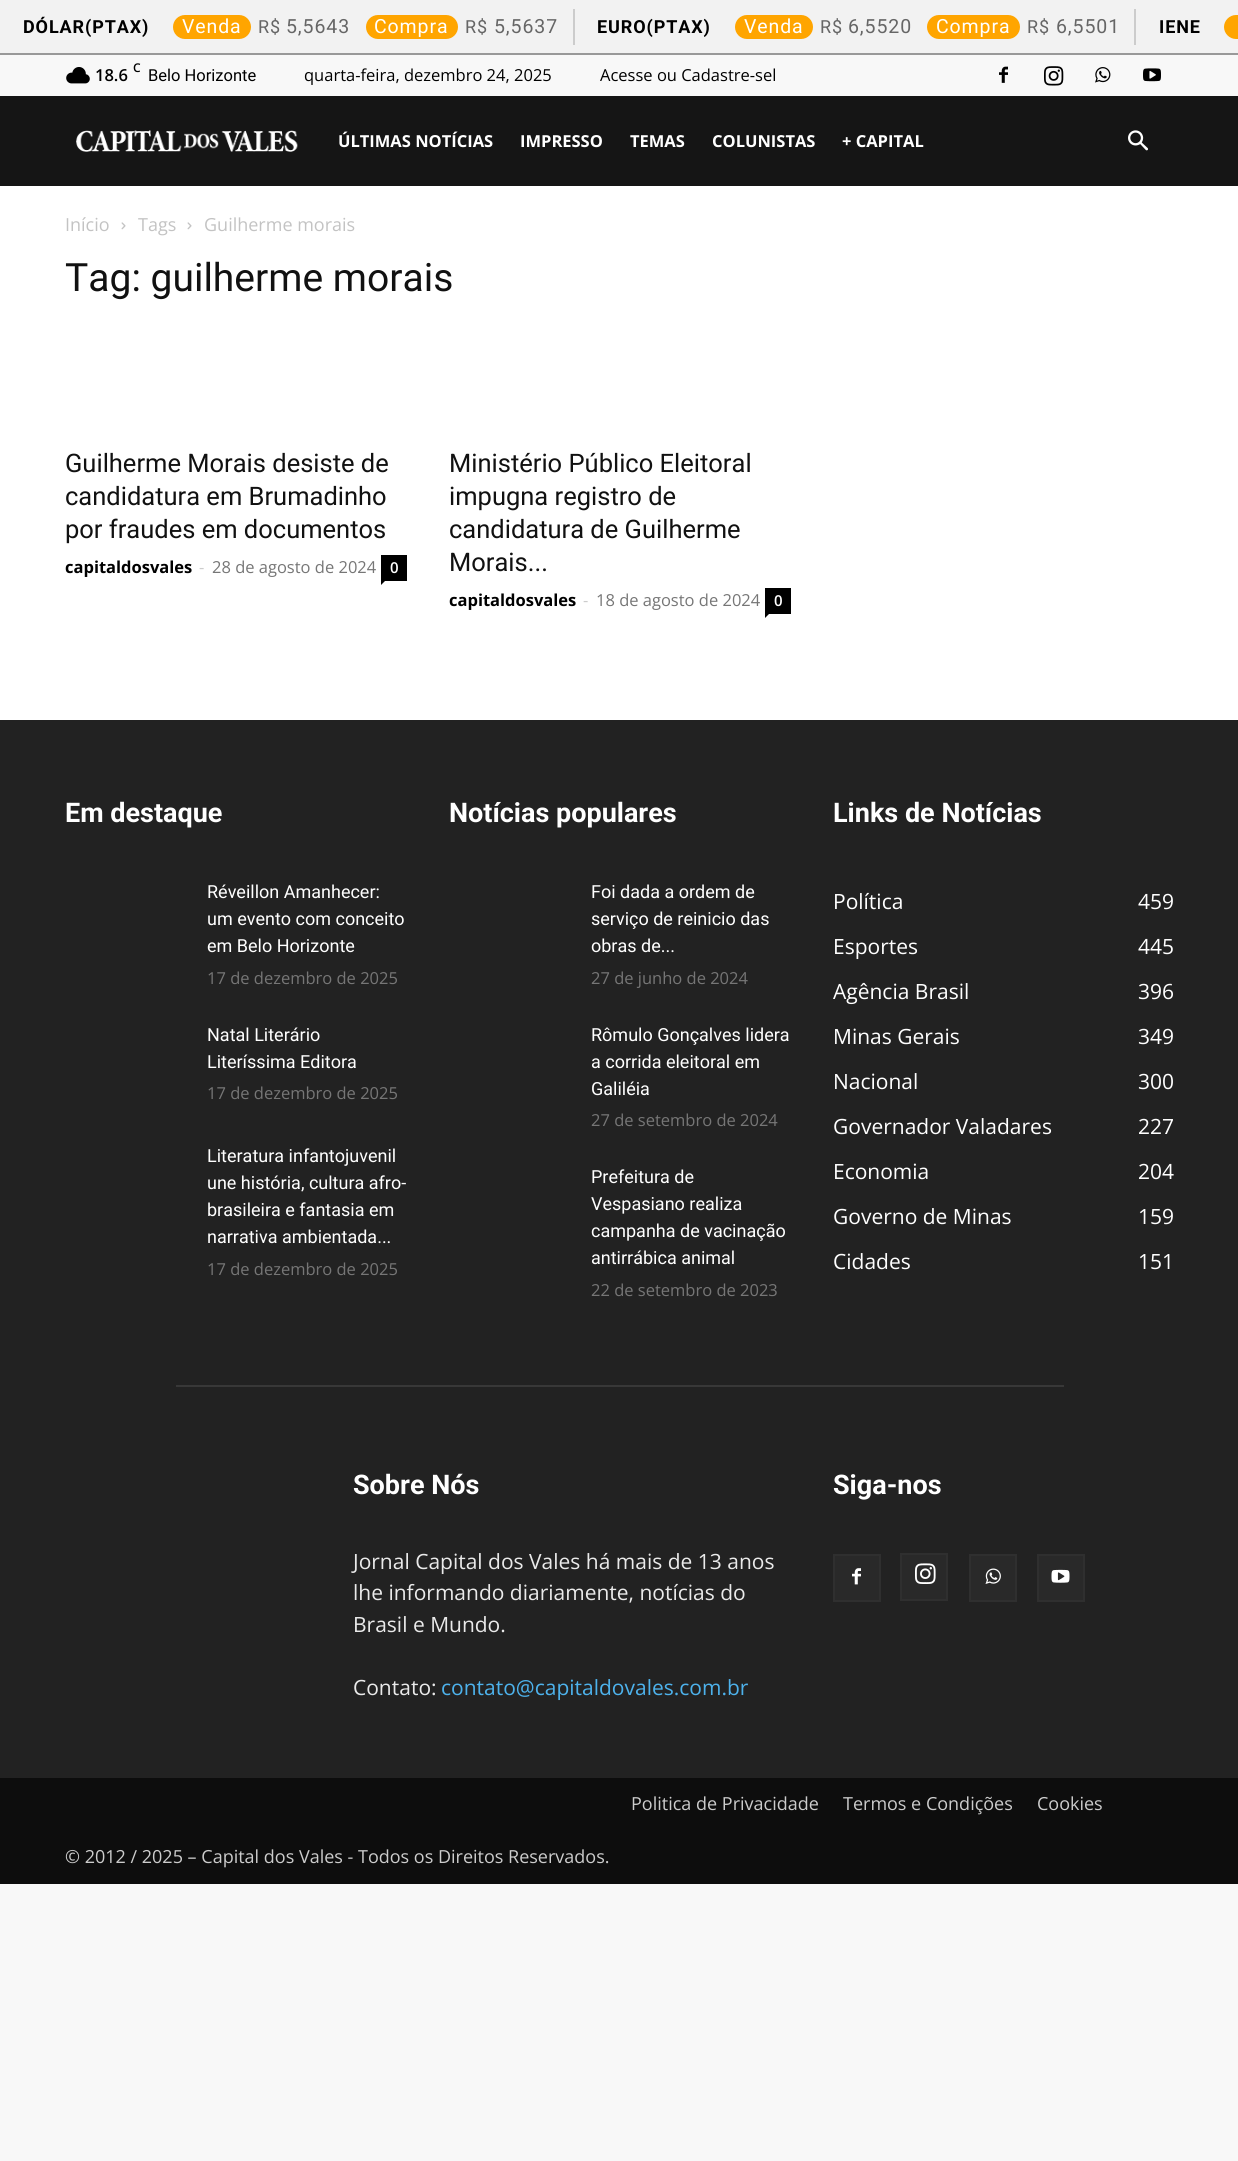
#include <cairo.h>
#include <math.h>
#include <stddef.h>

typedef struct { double x, y; const char *s; } line_t;
typedef struct { double x, y, w, h; unsigned color; } box_t;

static void ink(cairo_t *ctx, unsigned color) {
    cairo_set_source_rgb(ctx, (color >> 16) / 255.0, (color >> 8 & 255) / 255.0, (color & 255) / 255.0);
}

static void write_spaced(cairo_t *ctx, double x, double y, const char *s, double letter, double word) {
    cairo_move_to(ctx, x, y);
    while (*s) {
        char ch[5] = {0};
        int n = 0;
        do ch[n++] = *s++; while ((*s & 0xC0) == 0x80);
        cairo_show_text(ctx, ch);
        cairo_rel_move_to(ctx, letter + word * (*ch == ' '), 0);
    }
}

static void round_path(cairo_t *ctx, double x, double y, double w, double h, double r) {
    cairo_new_sub_path(ctx);
    cairo_arc(ctx, x + w - r, y + h - r, r, 0, M_PI / 2);
    cairo_arc(ctx, x + r, y + h - r, r, M_PI / 2, M_PI);
    cairo_arc(ctx, x + r, y + r, r, M_PI, 1.5 * M_PI);
    cairo_arc(ctx, x + w - r, y + r, r, 1.5 * M_PI, 2 * M_PI);
    cairo_close_path(ctx);
}

static void paste(cairo_t *ctx, const char *path, double x, double y, double w, double h) {
    cairo_surface_t *image = cairo_image_surface_create_from_png(path);
    cairo_save(ctx);
    cairo_set_source_surface(ctx, image, x, y);
    cairo_rectangle(ctx, x, y, w, h);
    cairo_fill(ctx);
    cairo_restore(ctx);
    cairo_surface_destroy(image);
}

int main(void) {
    cairo_surface_t *surface = cairo_image_surface_create(CAIRO_FORMAT_RGB24, 1238, 2161);
    cairo_t *ctx = cairo_create(surface);
    cairo_font_options_t *options = cairo_font_options_create();
    cairo_font_options_set_hint_metrics(options, CAIRO_HINT_METRICS_OFF);
    cairo_font_options_set_hint_style(options, CAIRO_HINT_STYLE_NONE);
    cairo_set_font_options(ctx, options);
    cairo_set_miter_limit(ctx, 4);
    ink(ctx, 0xF8F8F8);
    cairo_paint(ctx);
    {
        static const box_t items[] = {
            {0, 0, 1238, 53, 0xF2F2F2},
            {0, 53, 1238, 2, 0x999999},
            {573, 9, 2, 36, 0xCCCCCC},
        };
        for (size_t i = 0; i < sizeof items / sizeof *items; i++) {
            ink(ctx, items[i].color);
            cairo_rectangle(ctx, items[i].x, items[i].y, items[i].w, items[i].h);
            cairo_fill(ctx);
        }
    }
    cairo_select_font_face(ctx, "Roboto", CAIRO_FONT_SLANT_NORMAL, CAIRO_FONT_WEIGHT_BOLD);
    cairo_set_font_size(ctx, 18);
    ink(ctx, 0x000000);
    write_spaced(ctx, 23, 33, "DÓLAR(PTAX)", 0.9, 0);
    ink(ctx, 0xFFA500);
    round_path(ctx, 173, 15, 78, 24, 12);
    cairo_fill(ctx);
    cairo_select_font_face(ctx, "Roboto", CAIRO_FONT_SLANT_NORMAL, CAIRO_FONT_WEIGHT_NORMAL);
    cairo_set_font_size(ctx, 19.5);
    ink(ctx, 0xFFFFFF);
    write_spaced(ctx, 182, 33, "Venda", 0.9, 0);
    cairo_set_font_size(ctx, 18);
    ink(ctx, 0x666666);
    write_spaced(ctx, 258, 33, "R$", 0.9, 0);
    cairo_set_font_size(ctx, 19.5);
    write_spaced(ctx, 286, 33, "5,5643", 0.9, 0);
    ink(ctx, 0xFFA500);
    round_path(ctx, 366, 15, 92, 24, 12);
    cairo_fill(ctx);
    ink(ctx, 0xFFFFFF);
    write_spaced(ctx, 374, 33, "Compra", 0.9, 0);
    cairo_set_font_size(ctx, 18);
    ink(ctx, 0x666666);
    write_spaced(ctx, 465, 33, "R$", 0.9, 0);
    cairo_set_font_size(ctx, 19.5);
    write_spaced(ctx, 494, 33, "5,5637", 0.9, 0);
    ink(ctx, 0xCCCCCC);
    cairo_rectangle(ctx, 1134, 9, 2, 36);
    cairo_fill(ctx);
    cairo_select_font_face(ctx, "Roboto", CAIRO_FONT_SLANT_NORMAL, CAIRO_FONT_WEIGHT_BOLD);
    cairo_set_font_size(ctx, 18);
    ink(ctx, 0x000000);
    write_spaced(ctx, 597, 33, "EURO(PTAX)", 0.9, 0);
    ink(ctx, 0xFFA500);
    round_path(ctx, 735, 15, 78, 24, 12);
    cairo_fill(ctx);
    cairo_select_font_face(ctx, "Roboto", CAIRO_FONT_SLANT_NORMAL, CAIRO_FONT_WEIGHT_NORMAL);
    cairo_set_font_size(ctx, 19.5);
    ink(ctx, 0xFFFFFF);
    write_spaced(ctx, 744, 33, "Venda", 0.9, 0);
    cairo_set_font_size(ctx, 18);
    ink(ctx, 0x666666);
    write_spaced(ctx, 820, 33, "R$", 0.9, 0);
    cairo_set_font_size(ctx, 19.5);
    write_spaced(ctx, 848, 33, "6,5520", 0.9, 0);
    ink(ctx, 0xFFA500);
    round_path(ctx, 927, 15, 93, 24, 12);
    cairo_fill(ctx);
    ink(ctx, 0xFFFFFF);
    write_spaced(ctx, 936, 33, "Compra", 0.9, 0);
    cairo_set_font_size(ctx, 18);
    ink(ctx, 0x666666);
    write_spaced(ctx, 1027, 33, "R$", 0.9, 0);
    cairo_set_font_size(ctx, 19.5);
    write_spaced(ctx, 1056, 33, "6,5501", 0.9, 0);
    cairo_select_font_face(ctx, "Roboto", CAIRO_FONT_SLANT_NORMAL, CAIRO_FONT_WEIGHT_BOLD);
    cairo_set_font_size(ctx, 18);
    ink(ctx, 0x000000);
    write_spaced(ctx, 1159, 33, "IENE", 0.9, 0);
    ink(ctx, 0xFFA500);
    cairo_new_path(ctx);
    cairo_move_to(ctx, 1236, 15);
    cairo_line_to(ctx, 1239, 15);
    cairo_line_to(ctx, 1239, 39);
    cairo_line_to(ctx, 1236, 39);
    cairo_curve_to(ctx, 1229.5, 39, 1224, 33.5, 1224, 27);
    cairo_curve_to(ctx, 1224, 20.5, 1229.5, 15, 1236, 15);
    cairo_close_path(ctx);
    cairo_fill(ctx);
    paste(ctx, "media/1.png", 66, 67, 24, 17);
    cairo_select_font_face(ctx, "Open Sans SemiBold", CAIRO_FONT_SLANT_NORMAL, CAIRO_FONT_WEIGHT_NORMAL);
    cairo_set_font_size(ctx, 12);
    ink(ctx, 0x000000);
    cairo_move_to(ctx, 133, 72);
    cairo_show_text(ctx, "C");
    cairo_set_font_size(ctx, 16.5);
    cairo_move_to(ctx, 95, 81);
    cairo_show_text(ctx, "18.6");
    cairo_select_font_face(ctx, "Roboto", CAIRO_FONT_SLANT_NORMAL, CAIRO_FONT_WEIGHT_NORMAL);
    cairo_move_to(ctx, 148, 81);
    cairo_show_text(ctx, "Belo Horizonte");
    cairo_select_font_face(ctx, "Open Sans", CAIRO_FONT_SLANT_NORMAL, CAIRO_FONT_WEIGHT_NORMAL);
    cairo_move_to(ctx, 304, 81);
    cairo_show_text(ctx, "quarta-feira, dezembro 24, 2025");
    cairo_move_to(ctx, 600, 81);
    cairo_show_text(ctx, "Acesse ou Cadastre-sel");
    paste(ctx, "media/2.png", 999, 66, 9, 17);
    paste(ctx, "media/3.png", 1044, 66, 20, 20);
    paste(ctx, "media/4.png", 1095, 67, 16, 16);
    paste(ctx, "media/5.png", 1143, 68, 18, 14);
    ink(ctx, 0x151515);
    cairo_rectangle(ctx, 0, 96, 1238, 90);
    cairo_fill(ctx);
    paste(ctx, "media/6.png", 76, 130, 222, 22);
    cairo_select_font_face(ctx, "Open Sans", CAIRO_FONT_SLANT_NORMAL, CAIRO_FONT_WEIGHT_BOLD);
    ink(ctx, 0xFFFFFF);
    {
        static const line_t items[] = {
            {338, 147, "ÚLTIMAS NOTÍCIAS"},
            {520, 147, "IMPRESSO"},
            {630, 147, "TEMAS"},
            {712, 147, "COLUNISTAS"},
            {842, 147, "+ CAPITAL"},
        };
        for (size_t i = 0; i < sizeof items / sizeof *items; i++) {
            cairo_move_to(ctx, items[i].x, items[i].y);
            cairo_show_text(ctx, items[i].s);
        }
    }
    paste(ctx, "media/7.png", 1128, 130, 20, 21);
    cairo_rectangle(ctx, 0, 186, 1238, 534);
    cairo_fill(ctx);
    cairo_select_font_face(ctx, "Open Sans", CAIRO_FONT_SLANT_NORMAL, CAIRO_FONT_WEIGHT_NORMAL);
    cairo_set_font_size(ctx, 18);
    ink(ctx, 0xC3C3C3);
    cairo_move_to(ctx, 65, 231);
    cairo_show_text(ctx, "Início");
    paste(ctx, "media/8.png", 121, 222, 5, 8);
    cairo_move_to(ctx, 138, 231);
    cairo_show_text(ctx, "Tags");
    paste(ctx, "media/8.png", 187, 222, 5, 8);
    cairo_move_to(ctx, 204, 231);
    cairo_show_text(ctx, "Guilherme morais");
    cairo_select_font_face(ctx, "Roboto", CAIRO_FONT_SLANT_NORMAL, CAIRO_FONT_WEIGHT_NORMAL);
    cairo_set_font_size(ctx, 39);
    ink(ctx, 0x111111);
    cairo_move_to(ctx, 65, 291);
    cairo_show_text(ctx, "Tag: guilherme morais");
    cairo_set_font_size(ctx, 25.5);
    {
        static const line_t items[] = {
            {65, 472, "Guilherme Morais desiste de"},
            {65, 505, "candidatura em Brumadinho"},
            {65, 538, "por fraudes em documentos"},
        };
        for (size_t i = 0; i < sizeof items / sizeof *items; i++) {
            cairo_move_to(ctx, items[i].x, items[i].y);
            cairo_show_text(ctx, items[i].s);
        }
    }
    cairo_select_font_face(ctx, "Open Sans", CAIRO_FONT_SLANT_NORMAL, CAIRO_FONT_WEIGHT_BOLD);
    cairo_set_font_size(ctx, 16.5);
    ink(ctx, 0x000000);
    cairo_move_to(ctx, 65, 573);
    cairo_show_text(ctx, "capitaldosvales");
    cairo_select_font_face(ctx, "Open Sans", CAIRO_FONT_SLANT_NORMAL, CAIRO_FONT_WEIGHT_NORMAL);
    ink(ctx, 0xCCCCCC);
    cairo_move_to(ctx, 199, 573);
    cairo_show_text(ctx, "-");
    ink(ctx, 0x767676);
    cairo_move_to(ctx, 212, 573);
    cairo_show_text(ctx, "28 de agosto de 2024");
    ink(ctx, 0x000000);
    cairo_rectangle(ctx, 381, 555, 26, 26);
    cairo_fill(ctx);
    cairo_select_font_face(ctx, "Open Sans SemiBold", CAIRO_FONT_SLANT_NORMAL, CAIRO_FONT_WEIGHT_NORMAL);
    cairo_set_font_size(ctx, 15);
    ink(ctx, 0xFFFFFF);
    cairo_move_to(ctx, 390, 573);
    cairo_show_text(ctx, "0");
    ink(ctx, 0x000000);
    cairo_new_path(ctx);
    cairo_move_to(ctx, 381, 580.5);
    cairo_line_to(ctx, 385.5, 580.5);
    cairo_line_to(ctx, 381, 585);
    cairo_close_path(ctx);
    cairo_fill(ctx);
    cairo_select_font_face(ctx, "Roboto", CAIRO_FONT_SLANT_NORMAL, CAIRO_FONT_WEIGHT_NORMAL);
    cairo_set_font_size(ctx, 25.5);
    ink(ctx, 0x111111);
    {
        static const line_t items[] = {
            {449, 472, "Ministério Público Eleitoral"},
            {449, 505, "impugna registro de"},
            {449, 538, "candidatura de Guilherme"},
            {449, 571, "Morais..."},
        };
        for (size_t i = 0; i < sizeof items / sizeof *items; i++) {
            cairo_move_to(ctx, items[i].x, items[i].y);
            cairo_show_text(ctx, items[i].s);
        }
    }
    cairo_select_font_face(ctx, "Open Sans", CAIRO_FONT_SLANT_NORMAL, CAIRO_FONT_WEIGHT_BOLD);
    cairo_set_font_size(ctx, 16.5);
    ink(ctx, 0x000000);
    cairo_move_to(ctx, 449, 606);
    cairo_show_text(ctx, "capitaldosvales");
    cairo_select_font_face(ctx, "Open Sans", CAIRO_FONT_SLANT_NORMAL, CAIRO_FONT_WEIGHT_NORMAL);
    ink(ctx, 0xCCCCCC);
    cairo_move_to(ctx, 583, 606);
    cairo_show_text(ctx, "-");
    ink(ctx, 0x767676);
    cairo_move_to(ctx, 596, 606);
    cairo_show_text(ctx, "18 de agosto de 2024");
    ink(ctx, 0x000000);
    cairo_rectangle(ctx, 765, 588, 26, 26);
    cairo_fill(ctx);
    cairo_select_font_face(ctx, "Open Sans SemiBold", CAIRO_FONT_SLANT_NORMAL, CAIRO_FONT_WEIGHT_NORMAL);
    cairo_set_font_size(ctx, 15);
    ink(ctx, 0xFFFFFF);
    cairo_move_to(ctx, 774, 606);
    cairo_show_text(ctx, "0");
    ink(ctx, 0x000000);
    cairo_new_path(ctx);
    cairo_move_to(ctx, 765, 613.5);
    cairo_line_to(ctx, 769.5, 613.5);
    cairo_line_to(ctx, 765, 618);
    cairo_close_path(ctx);
    cairo_fill(ctx);
    ink(ctx, 0x222222);
    cairo_rectangle(ctx, 0, 720, 1238, 1058);
    cairo_fill(ctx);
    cairo_select_font_face(ctx, "Roboto", CAIRO_FONT_SLANT_NORMAL, CAIRO_FONT_WEIGHT_BOLD);
    cairo_set_font_size(ctx, 27);
    ink(ctx, 0xFFFFFF);
    cairo_move_to(ctx, 65, 822);
    cairo_show_text(ctx, "Em destaque");
    cairo_select_font_face(ctx, "Roboto", CAIRO_FONT_SLANT_NORMAL, CAIRO_FONT_WEIGHT_NORMAL);
    cairo_set_font_size(ctx, 18);
    {
        static const line_t items[] = {
            {207, 898, "Réveillon Amanhecer:"},
            {207, 925, "um evento com conceito"},
            {207, 952, "em Belo Horizonte"},
        };
        for (size_t i = 0; i < sizeof items / sizeof *items; i++) {
            cairo_move_to(ctx, items[i].x, items[i].y);
            cairo_show_text(ctx, items[i].s);
        }
    }
    cairo_select_font_face(ctx, "Open Sans", CAIRO_FONT_SLANT_NORMAL, CAIRO_FONT_WEIGHT_NORMAL);
    cairo_set_font_size(ctx, 16.5);
    ink(ctx, 0x767676);
    cairo_move_to(ctx, 207, 984);
    cairo_show_text(ctx, "17 de dezembro de 2025");
    cairo_select_font_face(ctx, "Roboto", CAIRO_FONT_SLANT_NORMAL, CAIRO_FONT_WEIGHT_NORMAL);
    cairo_set_font_size(ctx, 18);
    ink(ctx, 0xFFFFFF);
    cairo_move_to(ctx, 207, 1041);
    cairo_show_text(ctx, "Natal Literário");
    cairo_move_to(ctx, 207, 1068);
    cairo_show_text(ctx, "Literíssima Editora");
    cairo_select_font_face(ctx, "Open Sans", CAIRO_FONT_SLANT_NORMAL, CAIRO_FONT_WEIGHT_NORMAL);
    cairo_set_font_size(ctx, 16.5);
    ink(ctx, 0x767676);
    cairo_move_to(ctx, 207, 1099);
    cairo_show_text(ctx, "17 de dezembro de 2025");
    cairo_select_font_face(ctx, "Roboto", CAIRO_FONT_SLANT_NORMAL, CAIRO_FONT_WEIGHT_NORMAL);
    cairo_set_font_size(ctx, 18);
    ink(ctx, 0xFFFFFF);
    {
        static const line_t items[] = {
            {207, 1162, "Literatura infantojuvenil"},
            {207, 1189, "une história, cultura afro-"},
            {207, 1216, "brasileira e fantasia em"},
            {207, 1243, "narrativa ambientada..."},
        };
        for (size_t i = 0; i < sizeof items / sizeof *items; i++) {
            cairo_move_to(ctx, items[i].x, items[i].y);
            cairo_show_text(ctx, items[i].s);
        }
    }
    cairo_select_font_face(ctx, "Open Sans", CAIRO_FONT_SLANT_NORMAL, CAIRO_FONT_WEIGHT_NORMAL);
    cairo_set_font_size(ctx, 16.5);
    ink(ctx, 0x767676);
    cairo_move_to(ctx, 207, 1275);
    cairo_show_text(ctx, "17 de dezembro de 2025");
    cairo_select_font_face(ctx, "Roboto", CAIRO_FONT_SLANT_NORMAL, CAIRO_FONT_WEIGHT_BOLD);
    cairo_set_font_size(ctx, 27);
    ink(ctx, 0xFFFFFF);
    cairo_move_to(ctx, 449, 822);
    cairo_show_text(ctx, "Notícias populares");
    cairo_select_font_face(ctx, "Roboto", CAIRO_FONT_SLANT_NORMAL, CAIRO_FONT_WEIGHT_NORMAL);
    cairo_set_font_size(ctx, 18);
    {
        static const line_t items[] = {
            {591, 898, "Foi dada a ordem de"},
            {591, 925, "serviço de reinicio das"},
            {591, 952, "obras de..."},
        };
        for (size_t i = 0; i < sizeof items / sizeof *items; i++) {
            cairo_move_to(ctx, items[i].x, items[i].y);
            cairo_show_text(ctx, items[i].s);
        }
    }
    cairo_select_font_face(ctx, "Open Sans", CAIRO_FONT_SLANT_NORMAL, CAIRO_FONT_WEIGHT_NORMAL);
    cairo_set_font_size(ctx, 16.5);
    ink(ctx, 0x767676);
    cairo_move_to(ctx, 591, 984);
    cairo_show_text(ctx, "27 de junho de 2024");
    cairo_select_font_face(ctx, "Roboto", CAIRO_FONT_SLANT_NORMAL, CAIRO_FONT_WEIGHT_NORMAL);
    cairo_set_font_size(ctx, 18);
    ink(ctx, 0xFFFFFF);
    {
        static const line_t items[] = {
            {591, 1041, "Rômulo Gonçalves lidera"},
            {591, 1068, "a corrida eleitoral em"},
            {591, 1095, "Galiléia"},
        };
        for (size_t i = 0; i < sizeof items / sizeof *items; i++) {
            cairo_move_to(ctx, items[i].x, items[i].y);
            cairo_show_text(ctx, items[i].s);
        }
    }
    cairo_select_font_face(ctx, "Open Sans", CAIRO_FONT_SLANT_NORMAL, CAIRO_FONT_WEIGHT_NORMAL);
    cairo_set_font_size(ctx, 16.5);
    ink(ctx, 0x767676);
    cairo_move_to(ctx, 591, 1126);
    cairo_show_text(ctx, "27 de setembro de 2024");
    cairo_select_font_face(ctx, "Roboto", CAIRO_FONT_SLANT_NORMAL, CAIRO_FONT_WEIGHT_NORMAL);
    cairo_set_font_size(ctx, 18);
    ink(ctx, 0xFFFFFF);
    {
        static const line_t items[] = {
            {591, 1183, "Prefeitura de"},
            {591, 1210, "Vespasiano realiza"},
            {591, 1237, "campanha de vacinação"},
            {591, 1264, "antirrábica animal"},
        };
        for (size_t i = 0; i < sizeof items / sizeof *items; i++) {
            cairo_move_to(ctx, items[i].x, items[i].y);
            cairo_show_text(ctx, items[i].s);
        }
    }
    cairo_select_font_face(ctx, "Open Sans", CAIRO_FONT_SLANT_NORMAL, CAIRO_FONT_WEIGHT_NORMAL);
    cairo_set_font_size(ctx, 16.5);
    ink(ctx, 0x767676);
    cairo_move_to(ctx, 591, 1296);
    cairo_show_text(ctx, "22 de setembro de 2023");
    cairo_select_font_face(ctx, "Roboto", CAIRO_FONT_SLANT_NORMAL, CAIRO_FONT_WEIGHT_BOLD);
    cairo_set_font_size(ctx, 27);
    ink(ctx, 0xFFFFFF);
    cairo_move_to(ctx, 833, 822);
    cairo_show_text(ctx, "Links de Notícias");
    cairo_select_font_face(ctx, "Open Sans", CAIRO_FONT_SLANT_NORMAL, CAIRO_FONT_WEIGHT_NORMAL);
    cairo_set_font_size(ctx, 21);
    {
        static const line_t items[] = {
            {833, 909, "Política"},
            {1138, 909, "459"},
            {833, 954, "Esportes"},
            {1138, 954, "445"},
            {833, 999, "Agência Brasil"},
            {1138, 999, "396"},
            {833, 1044, "Minas Gerais"},
            {1138, 1044, "349"},
            {833, 1089, "Nacional"},
            {1138, 1089, "300"},
            {833, 1134, "Governador Valadares"},
            {1138, 1134, "227"},
            {833, 1179, "Economia"},
            {1138, 1179, "204"},
            {833, 1224, "Governo de Minas"},
            {1138, 1224, "159"},
            {833, 1269, "Cidades"},
            {1138, 1269, "151"},
        };
        for (size_t i = 0; i < sizeof items / sizeof *items; i++) {
            cairo_move_to(ctx, items[i].x, items[i].y);
            cairo_show_text(ctx, items[i].s);
        }
    }
    ink(ctx, 0x383838);
    cairo_rectangle(ctx, 176, 1385, 888, 2);
    cairo_fill(ctx);
    cairo_select_font_face(ctx, "Roboto", CAIRO_FONT_SLANT_NORMAL, CAIRO_FONT_WEIGHT_BOLD);
    cairo_set_font_size(ctx, 27);
    ink(ctx, 0xFFFFFF);
    cairo_move_to(ctx, 353, 1494);
    cairo_show_text(ctx, "Sobre Nós");
    cairo_select_font_face(ctx, "Open Sans", CAIRO_FONT_SLANT_NORMAL, CAIRO_FONT_WEIGHT_NORMAL);
    cairo_set_font_size(ctx, 21);
    ink(ctx, 0xEAEAEA);
    {
        static const line_t items[] = {
            {353, 1569, "Jornal Capital dos Vales há mais de 13 anos"},
            {353, 1600, "lhe informando diariamente, notícias do"},
            {353, 1632, "Brasil e Mundo."},
            {353, 1695, "Contato:"},
        };
        for (size_t i = 0; i < sizeof items / sizeof *items; i++) {
            cairo_move_to(ctx, items[i].x, items[i].y);
            cairo_show_text(ctx, items[i].s);
        }
    }
    ink(ctx, 0x4DB2EC);
    cairo_move_to(ctx, 441, 1695);
    cairo_show_text(ctx, "contato@capitaldovales.com.br");
    cairo_select_font_face(ctx, "Roboto", CAIRO_FONT_SLANT_NORMAL, CAIRO_FONT_WEIGHT_BOLD);
    cairo_set_font_size(ctx, 27);
    ink(ctx, 0xFFFFFF);
    cairo_move_to(ctx, 833, 1494);
    cairo_show_text(ctx, "Siga-nos");
    ink(ctx, 0x292929);
    cairo_rectangle(ctx, 835, 1556, 44, 44);
    cairo_fill(ctx);
    paste(ctx, "media/9.png", 852, 1568, 9, 17);
    cairo_rectangle(ctx, 834, 1555, 46, 46);
    ink(ctx, 0x2F2F2F);
    cairo_stroke(ctx);
    ink(ctx, 0x292929);
    cairo_rectangle(ctx, 902, 1555, 44, 44);
    cairo_fill(ctx);
    paste(ctx, "media/10.png", 915, 1563, 21, 21);
    cairo_rectangle(ctx, 901, 1554, 46, 46);
    ink(ctx, 0x2F2F2F);
    cairo_stroke(ctx);
    ink(ctx, 0x292929);
    cairo_rectangle(ctx, 971, 1556, 44, 44);
    cairo_fill(ctx);
    paste(ctx, "media/11.png", 985, 1568, 16, 16);
    cairo_rectangle(ctx, 970, 1555, 46, 46);
    ink(ctx, 0x2F2F2F);
    cairo_stroke(ctx);
    ink(ctx, 0x292929);
    cairo_rectangle(ctx, 1039, 1556, 44, 44);
    cairo_fill(ctx);
    paste(ctx, "media/12.png", 1051, 1569, 19, 14);
    cairo_rectangle(ctx, 1038, 1555, 46, 46);
    ink(ctx, 0x2F2F2F);
    cairo_stroke(ctx);
    ink(ctx, 0x0D0D0D);
    cairo_rectangle(ctx, 0, 1778, 1238, 106);
    cairo_fill(ctx);
    cairo_select_font_face(ctx, "Open Sans", CAIRO_FONT_SLANT_NORMAL, CAIRO_FONT_WEIGHT_NORMAL);
    cairo_set_font_size(ctx, 18);
    ink(ctx, 0xCCCCCC);
    {
        static const line_t items[] = {
            {631, 1810, "Politica de Privacidade"},
            {843, 1810, "Termos e Condições"},
            {1037, 1810, "Cookies"},
            {65, 1863, "© 2012 / 2025 – Capital dos Vales - Todos os Direitos Reservados."},
        };
        for (size_t i = 0; i < sizeof items / sizeof *items; i++) {
            cairo_move_to(ctx, items[i].x, items[i].y);
            cairo_show_text(ctx, items[i].s);
        }
    }
    cairo_surface_write_to_png(surface, "image.png");
    cairo_font_options_destroy(options);
    cairo_destroy(ctx);
    cairo_surface_destroy(surface);
    return 0;
}
